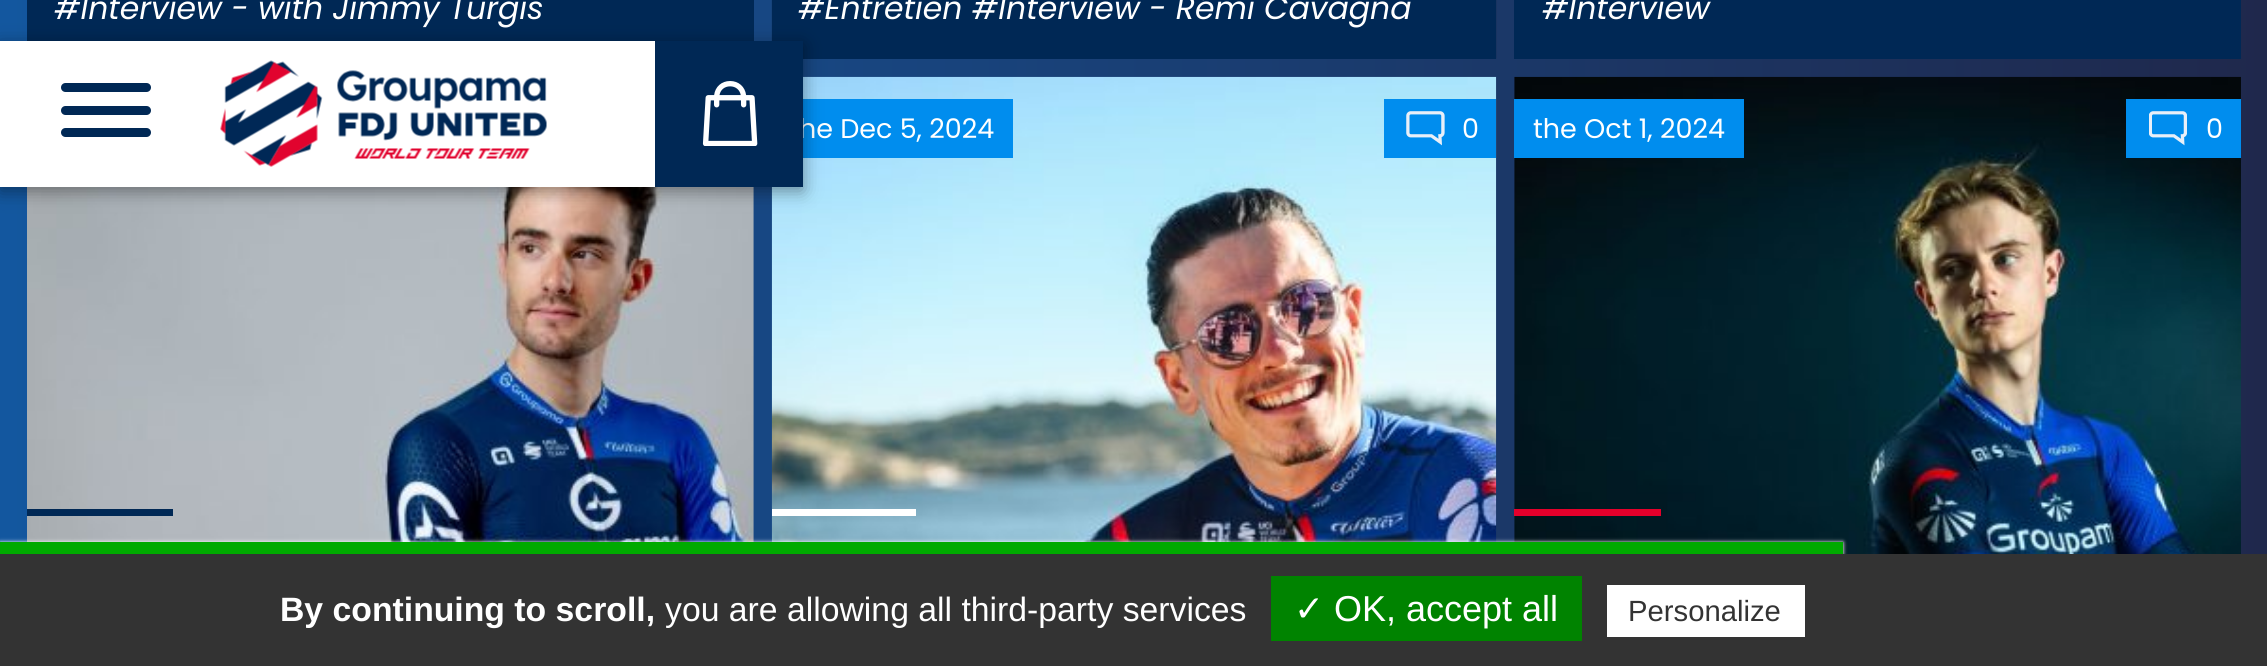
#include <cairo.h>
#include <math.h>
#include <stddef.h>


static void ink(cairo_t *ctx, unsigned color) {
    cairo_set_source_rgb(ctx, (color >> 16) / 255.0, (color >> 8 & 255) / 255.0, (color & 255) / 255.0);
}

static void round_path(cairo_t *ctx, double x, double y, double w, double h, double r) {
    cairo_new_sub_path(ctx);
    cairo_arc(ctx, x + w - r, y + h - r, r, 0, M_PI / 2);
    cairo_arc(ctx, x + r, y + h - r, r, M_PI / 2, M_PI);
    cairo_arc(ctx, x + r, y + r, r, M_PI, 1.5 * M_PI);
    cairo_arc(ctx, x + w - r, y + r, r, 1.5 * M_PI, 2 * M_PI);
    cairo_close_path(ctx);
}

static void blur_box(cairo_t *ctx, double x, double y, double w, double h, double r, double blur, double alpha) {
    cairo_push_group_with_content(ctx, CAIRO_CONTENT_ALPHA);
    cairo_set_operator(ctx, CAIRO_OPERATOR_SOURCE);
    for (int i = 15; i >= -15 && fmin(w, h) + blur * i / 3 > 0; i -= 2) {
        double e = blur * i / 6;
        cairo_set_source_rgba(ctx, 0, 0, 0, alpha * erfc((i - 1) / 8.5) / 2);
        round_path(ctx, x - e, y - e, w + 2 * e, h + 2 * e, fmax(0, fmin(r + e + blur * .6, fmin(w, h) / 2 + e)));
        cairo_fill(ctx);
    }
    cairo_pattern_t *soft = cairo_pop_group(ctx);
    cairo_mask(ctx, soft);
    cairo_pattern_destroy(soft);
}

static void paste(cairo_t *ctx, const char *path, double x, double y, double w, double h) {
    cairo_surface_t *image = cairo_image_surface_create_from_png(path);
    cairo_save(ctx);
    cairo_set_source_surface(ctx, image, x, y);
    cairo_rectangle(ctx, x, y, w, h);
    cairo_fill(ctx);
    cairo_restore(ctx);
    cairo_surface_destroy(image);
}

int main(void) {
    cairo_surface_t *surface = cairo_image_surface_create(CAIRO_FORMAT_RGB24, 2267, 666);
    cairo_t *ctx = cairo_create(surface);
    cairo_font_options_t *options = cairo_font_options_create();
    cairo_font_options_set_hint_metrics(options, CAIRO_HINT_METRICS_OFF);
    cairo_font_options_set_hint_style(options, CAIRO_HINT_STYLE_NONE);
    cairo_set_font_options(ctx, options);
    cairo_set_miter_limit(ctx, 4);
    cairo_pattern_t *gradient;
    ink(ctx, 0xFFFFFF);
    cairo_paint(ctx);
    gradient = cairo_pattern_create_linear(0, 523, 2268, 523);
    cairo_pattern_add_color_stop_rgba(gradient, 0, 0.075, 0.341, 0.624, 1);
    cairo_pattern_add_color_stop_rgba(gradient, 1, 0.122, 0.157, 0.298, 1);
    cairo_set_source(ctx, gradient);
    cairo_pattern_destroy(gradient);
    cairo_rectangle(ctx, 0, 0, 2267, 554);
    cairo_fill(ctx);
    ink(ctx, 0x002855);
    cairo_rectangle(ctx, 27, 0, 727, 41);
    cairo_fill(ctx);
    cairo_select_font_face(ctx, "Poppins", CAIRO_FONT_SLANT_ITALIC, CAIRO_FONT_WEIGHT_NORMAL);
    cairo_set_font_size(ctx, 31.5);
    ink(ctx, 0xFFFFFF);
    cairo_move_to(ctx, 54, 19);
    cairo_show_text(ctx, "#Interview - with Jimmy Turgis");
    paste(ctx, "media/1.png", 771, 0, 726, 59);
    ink(ctx, 0x002855);
    cairo_rectangle(ctx, 772, 0, 724, 59);
    cairo_fill(ctx);
    ink(ctx, 0xFFFFFF);
    cairo_move_to(ctx, 798, 19);
    cairo_show_text(ctx, "#Entretien #Interview - Rémi Cavagna");
    ink(ctx, 0x002855);
    cairo_rectangle(ctx, 1514, 0, 727, 59);
    cairo_fill(ctx);
    ink(ctx, 0xFFFFFF);
    cairo_move_to(ctx, 1542, 19);
    cairo_show_text(ctx, "#Interview");
    paste(ctx, "media/2.png", 771, 76, 726, 466);
    ink(ctx, 0x008DEE);
    cairo_rectangle(ctx, 803, 99, 210, 59);
    cairo_fill(ctx);
    cairo_select_font_face(ctx, "Poppins", CAIRO_FONT_SLANT_NORMAL, CAIRO_FONT_WEIGHT_NORMAL);
    cairo_set_font_size(ctx, 27);
    ink(ctx, 0xFFFFFF);
    cairo_move_to(ctx, 799, 138);
    cairo_show_text(ctx, "he Dec 5, 2024");
    ink(ctx, 0x008DEE);
    cairo_rectangle(ctx, 1384, 99, 112, 59);
    cairo_fill(ctx);
    paste(ctx, "media/3.png", 1406, 111, 39, 35);
    ink(ctx, 0xFFFFFF);
    cairo_move_to(ctx, 1462, 138);
    cairo_show_text(ctx, "0");
    cairo_rectangle(ctx, 772, 509, 144, 7);
    cairo_fill(ctx);
    paste(ctx, "media/4.png", 1514, 76, 727, 478);
    ink(ctx, 0x008DEE);
    cairo_rectangle(ctx, 1514, 99, 230, 59);
    cairo_fill(ctx);
    ink(ctx, 0xFFFFFF);
    cairo_move_to(ctx, 1533, 138);
    cairo_show_text(ctx, "the Oct 1, 2024");
    ink(ctx, 0x008DEE);
    cairo_rectangle(ctx, 2126, 99, 115, 59);
    cairo_fill(ctx);
    paste(ctx, "media/5.png", 2149, 111, 38, 35);
    ink(ctx, 0xFFFFFF);
    cairo_move_to(ctx, 2206, 138);
    cairo_show_text(ctx, "0");
    ink(ctx, 0xE4002B);
    cairo_rectangle(ctx, 1514, 509, 147, 7);
    cairo_fill(ctx);
    paste(ctx, "media/6.png", 27, 187, 727, 355);
    ink(ctx, 0x002855);
    cairo_rectangle(ctx, 27, 509, 146, 7);
    cairo_fill(ctx);
    ink(ctx, 0x000000);
    blur_box(ctx, 0, 45, 803, 146, 0, 9, 0.4);
    ink(ctx, 0xFFFFFF);
    cairo_rectangle(ctx, 0, 41, 655, 146);
    cairo_fill(ctx);
    ink(ctx, 0x002855);
    round_path(ctx, 61, 106, 90, 9, 4.5);
    cairo_fill(ctx);
    round_path(ctx, 61, 83, 90, 9, 4.5);
    cairo_fill(ctx);
    round_path(ctx, 61, 128, 90, 9, 4.5);
    cairo_fill(ctx);
    paste(ctx, "media/7.png", 220, 60, 327, 107);
    cairo_rectangle(ctx, 655, 41, 148, 146);
    cairo_fill(ctx);
    paste(ctx, "media/8.png", 702, 81, 56, 65);
    ink(ctx, 0x555555);
    blur_box(ctx, 0, 545, 1843, 11, 0, 2, 1);
    ink(ctx, 0xFFFFFF);
    blur_box(ctx, 0, 542, 1843, 12, 0, 2, 1);
    ink(ctx, 0x00AA00);
    cairo_rectangle(ctx, 0, 542, 1843, 12);
    cairo_fill(ctx);
    ink(ctx, 0x333333);
    cairo_rectangle(ctx, 0, 554, 2267, 112);
    cairo_fill(ctx);
    cairo_select_font_face(ctx, "Liberation Sans", CAIRO_FONT_SLANT_NORMAL, CAIRO_FONT_WEIGHT_BOLD);
    cairo_set_font_size(ctx, 33.75);
    ink(ctx, 0xFFFFFF);
    cairo_move_to(ctx, 280, 621);
    cairo_show_text(ctx, "By continuing to scroll,");
    cairo_select_font_face(ctx, "Liberation Sans", CAIRO_FONT_SLANT_NORMAL, CAIRO_FONT_WEIGHT_NORMAL);
    cairo_move_to(ctx, 665, 621);
    cairo_show_text(ctx, "you are allowing all third-party services");
    ink(ctx, 0x008300);
    cairo_rectangle(ctx, 1271, 576, 311, 65);
    cairo_fill(ctx);
    cairo_select_font_face(ctx, "DejaVu Sans", CAIRO_FONT_SLANT_NORMAL, CAIRO_FONT_WEIGHT_NORMAL);
    cairo_set_font_size(ctx, 36);
    ink(ctx, 0xFFFFFF);
    cairo_move_to(ctx, 1294, 621);
    cairo_show_text(ctx, "✓");
    cairo_select_font_face(ctx, "Liberation Sans", CAIRO_FONT_SLANT_NORMAL, CAIRO_FONT_WEIGHT_NORMAL);
    cairo_move_to(ctx, 1334, 621);
    cairo_show_text(ctx, "OK, accept all");
    cairo_rectangle(ctx, 1607, 585, 198, 52);
    cairo_fill(ctx);
    cairo_set_font_size(ctx, 29.25);
    ink(ctx, 0x333333);
    cairo_move_to(ctx, 1628, 621);
    cairo_show_text(ctx, "Personalize");
    cairo_surface_write_to_png(surface, "image.png");
    cairo_font_options_destroy(options);
    cairo_destroy(ctx);
    cairo_surface_destroy(surface);
    return 0;
}
